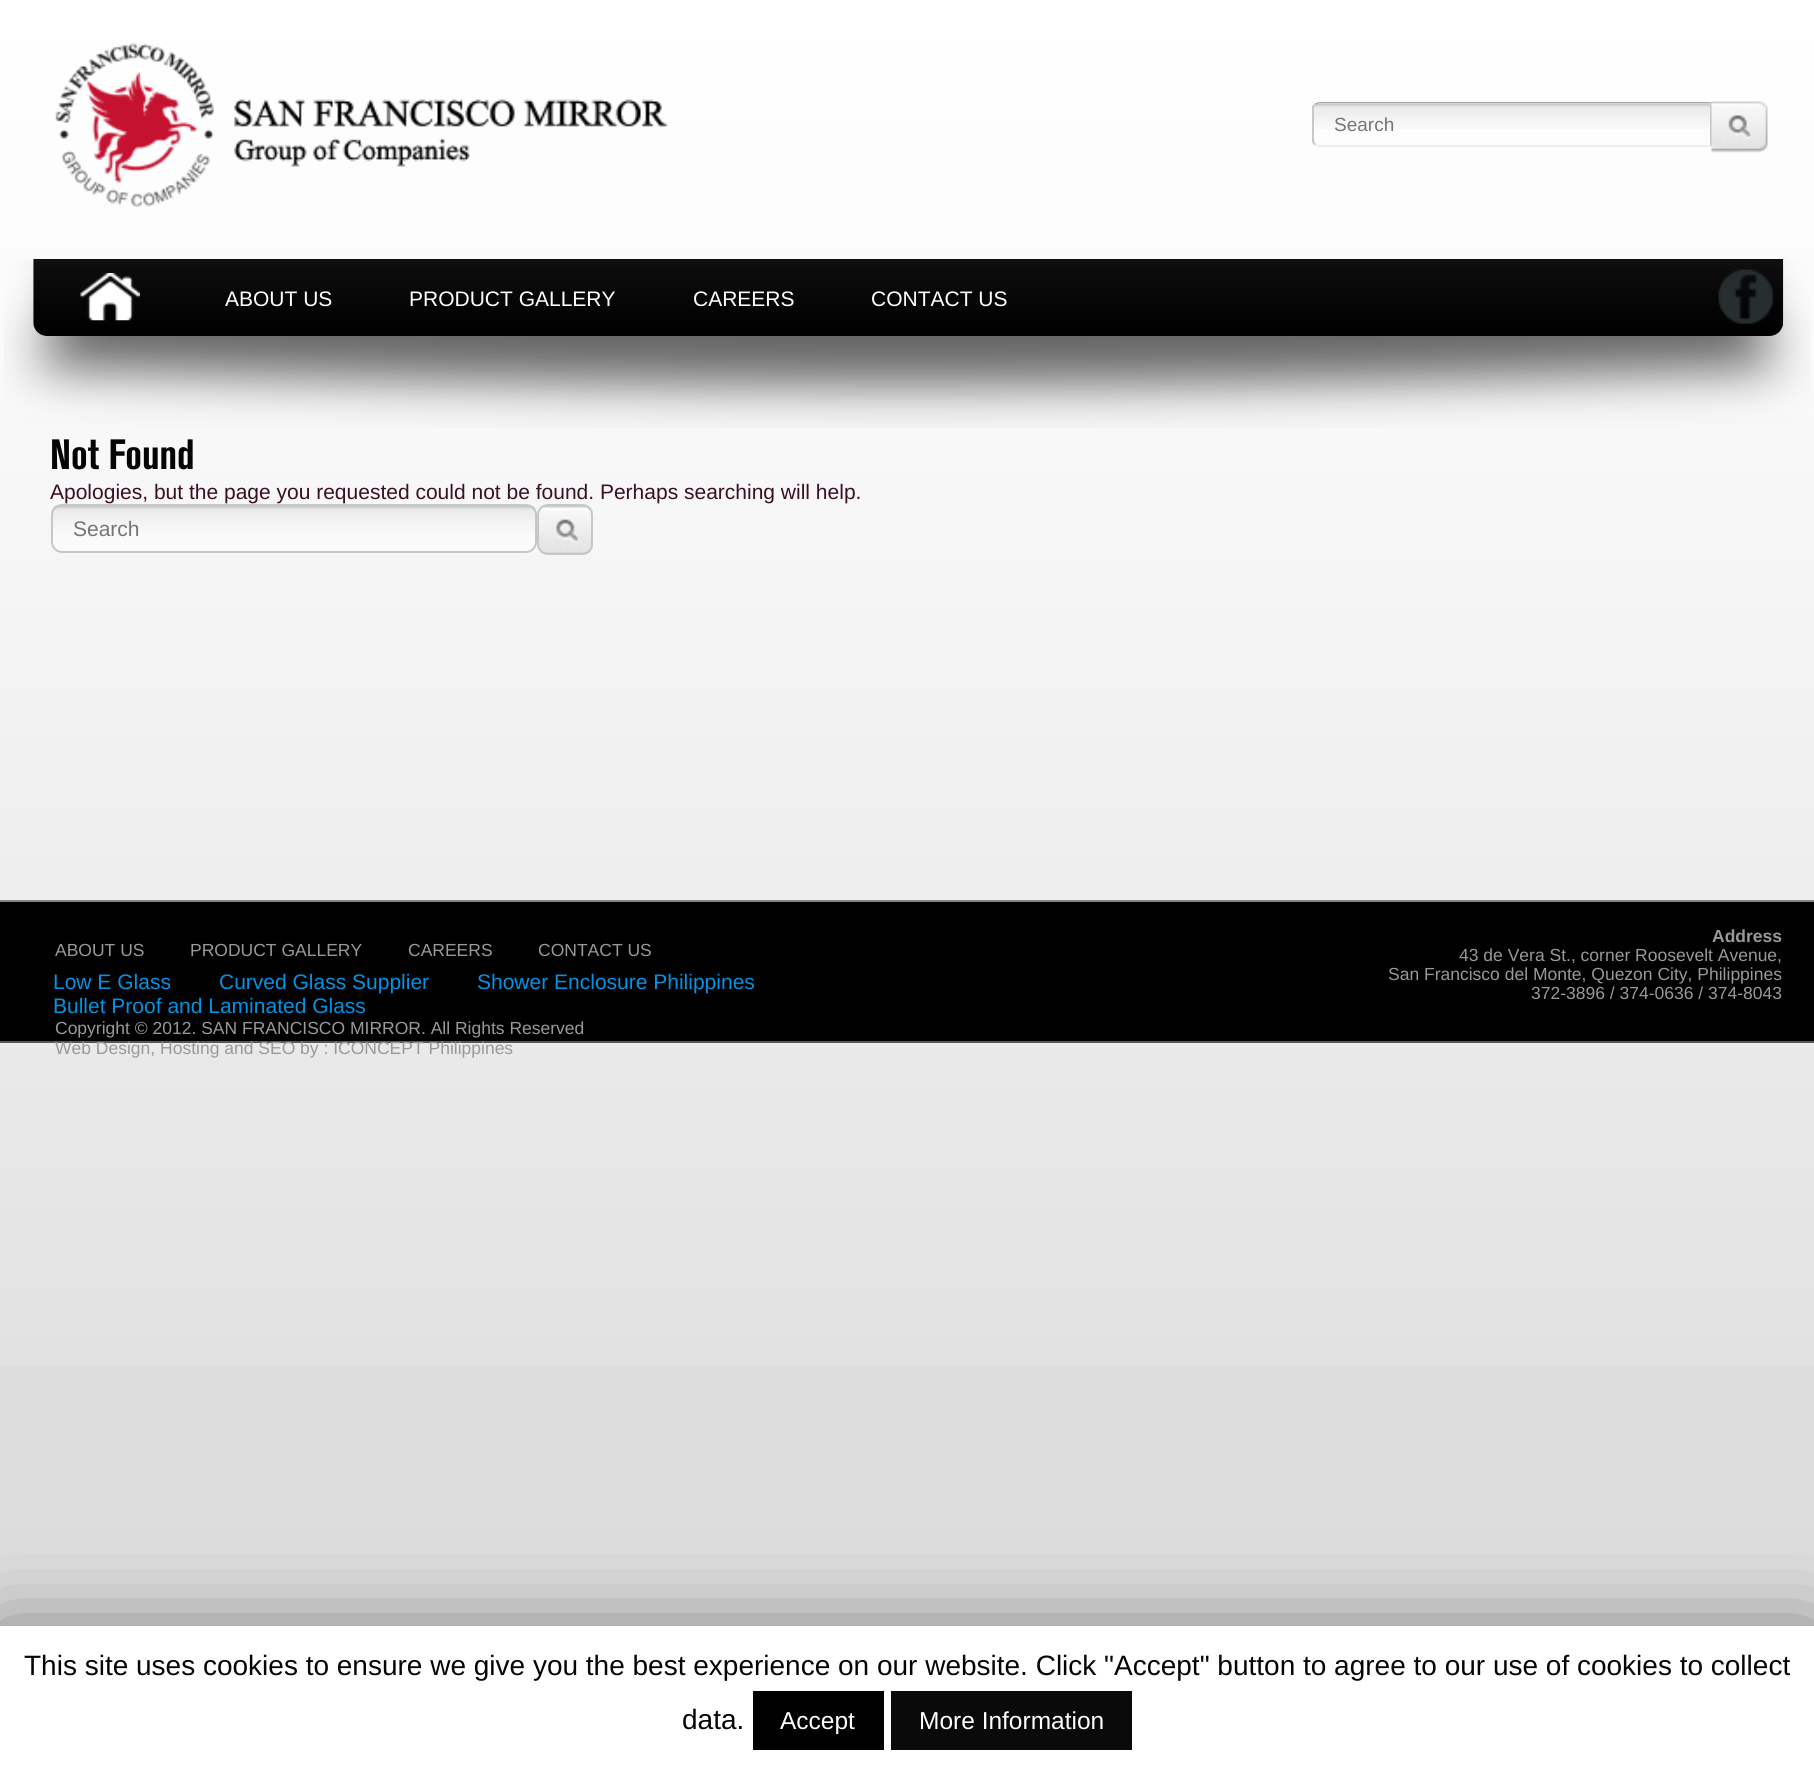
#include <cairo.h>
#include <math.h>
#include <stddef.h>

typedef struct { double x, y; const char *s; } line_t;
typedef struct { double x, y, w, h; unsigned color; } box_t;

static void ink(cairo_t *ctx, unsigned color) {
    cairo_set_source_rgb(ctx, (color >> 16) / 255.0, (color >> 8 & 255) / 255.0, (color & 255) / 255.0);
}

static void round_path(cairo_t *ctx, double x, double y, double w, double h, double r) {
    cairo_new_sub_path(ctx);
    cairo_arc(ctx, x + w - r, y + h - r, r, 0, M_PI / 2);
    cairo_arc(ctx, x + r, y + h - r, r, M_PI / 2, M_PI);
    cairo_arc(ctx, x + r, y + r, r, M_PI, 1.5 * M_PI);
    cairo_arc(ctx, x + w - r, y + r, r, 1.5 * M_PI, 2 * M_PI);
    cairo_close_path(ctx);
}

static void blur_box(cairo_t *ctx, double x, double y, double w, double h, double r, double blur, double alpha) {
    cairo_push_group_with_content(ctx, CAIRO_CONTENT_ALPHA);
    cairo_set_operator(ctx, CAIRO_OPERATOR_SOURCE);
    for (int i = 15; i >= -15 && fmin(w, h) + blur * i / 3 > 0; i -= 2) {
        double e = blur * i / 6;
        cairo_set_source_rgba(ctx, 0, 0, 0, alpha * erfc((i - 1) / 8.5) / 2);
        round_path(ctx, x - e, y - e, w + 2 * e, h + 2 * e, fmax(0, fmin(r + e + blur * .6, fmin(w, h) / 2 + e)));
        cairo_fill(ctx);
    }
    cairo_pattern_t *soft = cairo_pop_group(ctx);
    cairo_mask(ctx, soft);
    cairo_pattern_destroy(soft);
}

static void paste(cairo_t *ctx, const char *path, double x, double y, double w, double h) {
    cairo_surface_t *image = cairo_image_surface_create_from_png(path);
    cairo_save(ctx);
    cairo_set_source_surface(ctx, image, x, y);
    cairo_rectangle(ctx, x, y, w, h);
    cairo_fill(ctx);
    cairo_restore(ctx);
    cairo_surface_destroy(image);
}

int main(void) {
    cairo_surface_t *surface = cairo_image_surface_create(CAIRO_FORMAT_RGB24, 1814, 1772);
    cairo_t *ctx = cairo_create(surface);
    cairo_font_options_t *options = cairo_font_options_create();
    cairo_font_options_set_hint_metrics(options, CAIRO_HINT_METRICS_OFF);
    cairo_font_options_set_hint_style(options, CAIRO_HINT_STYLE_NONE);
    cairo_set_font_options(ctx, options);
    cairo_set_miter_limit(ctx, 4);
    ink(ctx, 0xDDDDDD);
    cairo_paint(ctx);
    paste(ctx, "media/1.png", 0, 0, 1814, 1366);
    paste(ctx, "media/2.png", 55, 43, 613, 164);
    paste(ctx, "media/3.png", 1313, 103, 397, 26);
    ink(ctx, 0xA6A6A6);
    cairo_new_path(ctx);
    cairo_move_to(ctx, 1320, 102);
    cairo_curve_to(ctx, 1318, 102, 1316, 103, 1315, 104);
    cairo_line_to(ctx, 1316, 105);
    cairo_curve_to(ctx, 1317, 104, 1318, 103, 1320, 103);
    cairo_line_to(ctx, 1710, 103);
    cairo_line_to(ctx, 1711, 102);
    cairo_close_path(ctx);
    cairo_fill(ctx);
    ink(ctx, 0xC7C7C7);
    cairo_new_path(ctx);
    cairo_move_to(ctx, 1712, 102);
    cairo_line_to(ctx, 1712, 147);
    cairo_line_to(ctx, 1710, 145);
    cairo_line_to(ctx, 1710, 103);
    cairo_close_path(ctx);
    cairo_fill(ctx);
    ink(ctx, 0xEEEEEE);
    cairo_new_path(ctx);
    cairo_move_to(ctx, 1712, 147);
    cairo_line_to(ctx, 1710, 145);
    cairo_line_to(ctx, 1319, 145);
    cairo_line_to(ctx, 1316, 144);
    cairo_line_to(ctx, 1314, 145);
    cairo_curve_to(ctx, 1316, 146, 1318, 147, 1320, 147);
    cairo_close_path(ctx);
    cairo_fill(ctx);
    ink(ctx, 0xC7C7C7);
    cairo_new_path(ctx);
    cairo_move_to(ctx, 1312, 106);
    cairo_line_to(ctx, 1315, 104);
    cairo_line_to(ctx, 1316, 105);
    cairo_curve_to(ctx, 1315, 106, 1314, 107, 1314, 108);
    cairo_line_to(ctx, 1314, 140);
    cairo_curve_to(ctx, 1314, 142, 1315, 143, 1316, 144);
    cairo_line_to(ctx, 1314, 145);
    cairo_line_to(ctx, 1312, 142);
    cairo_close_path(ctx);
    cairo_fill(ctx);
    cairo_select_font_face(ctx, "Liberation Sans", CAIRO_FONT_SLANT_NORMAL, CAIRO_FONT_WEIGHT_NORMAL);
    cairo_set_font_size(ctx, 19);
    ink(ctx, 0x757575);
    cairo_move_to(ctx, 1334, 131);
    cairo_show_text(ctx, "Search");
    paste(ctx, "media/4.png", 1711, 101, 57, 52);
    paste(ctx, "media/5.png", 4, 259, 1806, 169);
    paste(ctx, "media/6.png", 33, 259, 1751, 77);
    paste(ctx, "media/7.png", 80, 273, 60, 48);
    cairo_set_font_size(ctx, 21);
    ink(ctx, 0xFFFFFF);
    {
        static const line_t items[] = {
            {225, 306, "ABOUT US"},
            {409, 306, "PRODUCT GALLERY"},
            {693, 306, "CAREERS"},
            {871, 306, "CONTACT US"},
        };
        for (size_t i = 0; i < sizeof items / sizeof *items; i++) {
            cairo_move_to(ctx, items[i].x, items[i].y);
            cairo_show_text(ctx, items[i].s);
        }
    }
    paste(ctx, "media/8.png", 1718, 269, 55, 55);
    cairo_select_font_face(ctx, "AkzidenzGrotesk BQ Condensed", CAIRO_FONT_SLANT_NORMAL, CAIRO_FONT_WEIGHT_BOLD);
    cairo_set_font_size(ctx, 42);
    ink(ctx, 0x050505);
    cairo_move_to(ctx, 50, 469);
    cairo_show_text(ctx, "Not Found");
    cairo_select_font_face(ctx, "Liberation Sans", CAIRO_FONT_SLANT_NORMAL, CAIRO_FONT_WEIGHT_NORMAL);
    cairo_set_font_size(ctx, 21);
    ink(ctx, 0x391025);
    cairo_move_to(ctx, 50, 499);
    cairo_show_text(ctx, "Apologies, but the page you requested could not be found. Perhaps searching will help.");
    paste(ctx, "media/9.png", 51, 505, 486, 46);
    round_path(ctx, 52, 505, 484, 47, 10);
    ink(ctx, 0xC7C7C7);
    cairo_stroke(ctx);
    ink(ctx, 0x757575);
    cairo_move_to(ctx, 73, 536);
    cairo_show_text(ctx, "Search");
    paste(ctx, "media/10.png", 539, 505, 54, 50);
    round_path(ctx, 538, 505, 54, 49, 10);
    ink(ctx, 0xC7C7C7);
    cairo_stroke(ctx);
    {
        static const box_t items[] = {
            {0, 902, 1814, 139, 0x000000},
            {0, 900, 1814, 2, 0x858585},
            {0, 1041, 1814, 2, 0x575757},
        };
        for (size_t i = 0; i < sizeof items / sizeof *items; i++) {
            ink(ctx, items[i].color);
            cairo_rectangle(ctx, items[i].x, items[i].y, items[i].w, items[i].h);
            cairo_fill(ctx);
        }
    }
    cairo_set_font_size(ctx, 17.5);
    ink(ctx, 0x999999);
    {
        static const line_t items[] = {
            {55, 956, "ABOUT US"},
            {190, 956, "PRODUCT GALLERY"},
            {408, 956, "CAREERS"},
            {538, 956, "CONTACT US"},
        };
        for (size_t i = 0; i < sizeof items / sizeof *items; i++) {
            cairo_move_to(ctx, items[i].x, items[i].y);
            cairo_show_text(ctx, items[i].s);
        }
    }
    cairo_set_font_size(ctx, 21);
    ink(ctx, 0x0592E2);
    {
        static const line_t items[] = {
            {53, 989, "Low E Glass"},
            {219, 989, "Curved Glass Supplier"},
            {477, 989, "Shower Enclosure Philippines"},
            {53, 1013, "Bullet Proof and Laminated Glass"},
        };
        for (size_t i = 0; i < sizeof items / sizeof *items; i++) {
            cairo_move_to(ctx, items[i].x, items[i].y);
            cairo_show_text(ctx, items[i].s);
        }
    }
    cairo_set_font_size(ctx, 17.5);
    ink(ctx, 0x999999);
    cairo_move_to(ctx, 55, 1034);
    cairo_show_text(ctx, "Copyright © 2012. SAN FRANCISCO MIRROR. All Rights Reserved");
    cairo_move_to(ctx, 55, 1054);
    cairo_show_text(ctx, "Web Design, Hosting and SEO by : ICONCEPT Philippines");
    cairo_select_font_face(ctx, "Liberation Sans", CAIRO_FONT_SLANT_NORMAL, CAIRO_FONT_WEIGHT_BOLD);
    cairo_move_to(ctx, 1712, 942);
    cairo_show_text(ctx, "Address");
    cairo_select_font_face(ctx, "Liberation Sans", CAIRO_FONT_SLANT_NORMAL, CAIRO_FONT_WEIGHT_NORMAL);
    {
        static const line_t items[] = {
            {1459, 961, "43 de Vera St., corner Roosevelt Avenue,"},
            {1388, 980, "San Francisco del Monte, Quezon City, Philippines"},
            {1531, 999, "372-3896 / 374-0636 / 374-8043"},
        };
        for (size_t i = 0; i < sizeof items / sizeof *items; i++) {
            cairo_move_to(ctx, items[i].x, items[i].y);
            cairo_show_text(ctx, items[i].s);
        }
    }
    ink(ctx, 0x000000);
    blur_box(ctx, 0, 1635, 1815, 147, 0, 44, 0.5);
    ink(ctx, 0xFFFFFF);
    cairo_rectangle(ctx, 0, 1626, 1814, 146);
    cairo_fill(ctx);
    cairo_set_font_size(ctx, 28);
    ink(ctx, 0x050505);
    cairo_move_to(ctx, 24, 1675);
    cairo_show_text(ctx, "This site uses cookies to ensure we give you the best experience on our website. Click \"Accept\" button to agree to our use of cookies to collect");
    cairo_move_to(ctx, 682, 1729);
    cairo_show_text(ctx, "data.");
    ink(ctx, 0x000000);
    cairo_rectangle(ctx, 753, 1691, 131, 59);
    cairo_fill(ctx);
    cairo_set_font_size(ctx, 24.5);
    ink(ctx, 0xFFFFFF);
    cairo_move_to(ctx, 780, 1729);
    cairo_show_text(ctx, "Accept");
    ink(ctx, 0x0A0A0A);
    cairo_rectangle(ctx, 891, 1691, 241, 59);
    cairo_fill(ctx);
    ink(ctx, 0xFFFFFF);
    cairo_move_to(ctx, 919, 1729);
    cairo_show_text(ctx, "More Information");
    cairo_surface_write_to_png(surface, "image.png");
    cairo_font_options_destroy(options);
    cairo_destroy(ctx);
    cairo_surface_destroy(surface);
    return 0;
}
